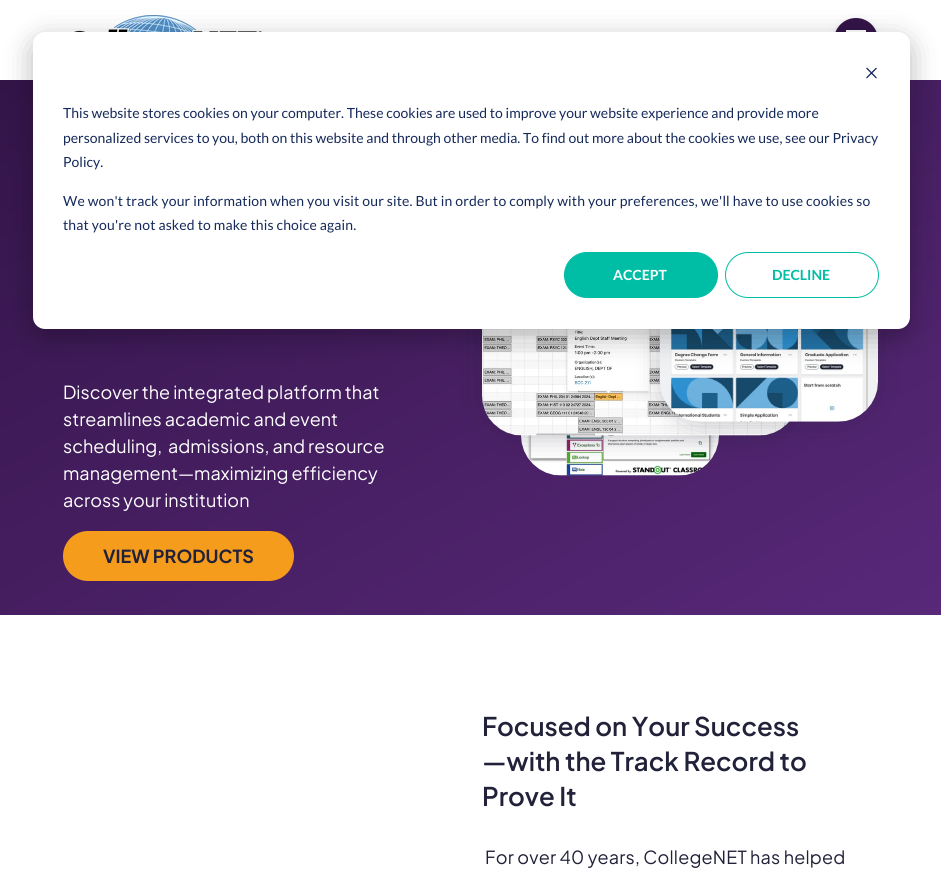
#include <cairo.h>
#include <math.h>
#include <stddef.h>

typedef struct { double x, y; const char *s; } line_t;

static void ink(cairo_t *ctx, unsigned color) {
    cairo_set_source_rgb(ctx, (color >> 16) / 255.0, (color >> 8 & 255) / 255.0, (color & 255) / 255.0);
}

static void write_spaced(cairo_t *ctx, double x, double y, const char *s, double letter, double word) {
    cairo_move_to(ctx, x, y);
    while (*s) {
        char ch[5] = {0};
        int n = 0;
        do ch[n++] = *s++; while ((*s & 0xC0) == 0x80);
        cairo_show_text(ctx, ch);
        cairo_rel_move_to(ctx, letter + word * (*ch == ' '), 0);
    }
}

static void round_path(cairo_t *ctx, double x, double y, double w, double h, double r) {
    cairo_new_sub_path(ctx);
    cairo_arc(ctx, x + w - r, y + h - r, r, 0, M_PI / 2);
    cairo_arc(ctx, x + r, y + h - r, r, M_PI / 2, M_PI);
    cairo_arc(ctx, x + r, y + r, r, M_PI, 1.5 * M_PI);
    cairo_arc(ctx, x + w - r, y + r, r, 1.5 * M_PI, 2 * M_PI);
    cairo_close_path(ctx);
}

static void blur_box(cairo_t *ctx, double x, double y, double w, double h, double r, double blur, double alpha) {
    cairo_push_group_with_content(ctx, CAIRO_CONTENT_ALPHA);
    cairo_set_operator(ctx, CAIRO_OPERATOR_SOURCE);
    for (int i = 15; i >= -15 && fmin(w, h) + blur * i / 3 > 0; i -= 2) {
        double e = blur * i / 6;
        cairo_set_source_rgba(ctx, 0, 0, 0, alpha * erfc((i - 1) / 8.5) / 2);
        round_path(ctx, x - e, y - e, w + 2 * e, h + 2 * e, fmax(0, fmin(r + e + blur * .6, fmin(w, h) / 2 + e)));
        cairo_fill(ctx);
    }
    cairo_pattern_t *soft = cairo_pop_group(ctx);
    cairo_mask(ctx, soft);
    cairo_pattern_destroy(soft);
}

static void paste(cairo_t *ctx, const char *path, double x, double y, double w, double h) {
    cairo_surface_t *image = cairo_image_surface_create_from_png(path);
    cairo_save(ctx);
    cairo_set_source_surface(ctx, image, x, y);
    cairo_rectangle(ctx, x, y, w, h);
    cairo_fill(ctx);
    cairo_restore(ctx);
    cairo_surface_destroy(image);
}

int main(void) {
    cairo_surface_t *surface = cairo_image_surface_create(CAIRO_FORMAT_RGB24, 941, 880);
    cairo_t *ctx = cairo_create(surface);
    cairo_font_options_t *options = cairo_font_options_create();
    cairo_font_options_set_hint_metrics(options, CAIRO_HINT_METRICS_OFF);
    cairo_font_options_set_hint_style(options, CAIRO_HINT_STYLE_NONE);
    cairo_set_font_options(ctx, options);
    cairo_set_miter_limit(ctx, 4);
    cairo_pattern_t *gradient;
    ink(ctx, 0xFFFFFF);
    cairo_paint(ctx);
    paste(ctx, "media/1.png", 71, 15, 191, 17);
    ink(ctx, 0x000000);
    blur_box(ctx, 837, 23, 38, 38, 19, 5, 0.2);
    ink(ctx, 0x331448);
    cairo_arc(ctx, 856, 40, 22, 0, 2 * M_PI);
    cairo_fill(ctx);
    ink(ctx, 0xFFFFFF);
    cairo_rectangle(ctx, 846, 30, 20, 2);
    cairo_fill(ctx);
    gradient = cairo_pattern_create_linear(241, -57, 700, 752);
    cairo_pattern_add_color_stop_rgba(gradient, 0, 0.2, 0.078, 0.282, 1);
    cairo_pattern_add_color_stop_rgba(gradient, 1, 0.345, 0.157, 0.475, 1);
    cairo_set_source(ctx, gradient);
    cairo_pattern_destroy(gradient);
    cairo_rectangle(ctx, 0, 80, 941, 535);
    cairo_fill(ctx);
    paste(ctx, "media/4.png", 521, 435, 198, 41);
    ink(ctx, 0x212139);
    blur_box(ctx, 485, 241, 311, 195, 37, 13.5, 0.3);
    paste(ctx, "media/3.png", 482, 329, 308, 107);
    blur_box(ctx, 663, 292, 212, 130, 37, 13.5, 0.3);
    paste(ctx, "media/5.png", 660, 329, 218, 93);
    ink(ctx, 0x000000);
    blur_box(ctx, 33, 40, 877, 297, 12, 14, 0.28);
    ink(ctx, 0xFFFFFF);
    round_path(ctx, 33, 32, 877, 297, 12);
    cairo_fill(ctx);
    paste(ctx, "media/2.png", 866, 67, 11, 12);
    cairo_select_font_face(ctx, "Lato", CAIRO_FONT_SLANT_NORMAL, CAIRO_FONT_WEIGHT_NORMAL);
    cairo_set_font_size(ctx, 14);
    ink(ctx, 0x15295A);
    {
        static const line_t items[] = {
            {63, 118, "This website stores cookies on your computer. These cookies are used to improve your website experience and provide more"},
            {63, 143, "personalized services to you, both on this website and through other media. To find out more about the cookies we use, see our Privacy"},
            {63, 167, "Policy."},
        };
        for (size_t i = 0; i < sizeof items / sizeof *items; i++) {
            cairo_move_to(ctx, items[i].x, items[i].y);
            cairo_show_text(ctx, items[i].s);
        }
    }
    write_spaced(ctx, 63, 206, "We won't track your information when you visit our site. But in order to comply with your preferences, we'll have to use cookies so", 0.14, 0);
    write_spaced(ctx, 63, 230, "that you're not asked to make this choice again.", 0.14, 0);
    ink(ctx, 0x00BDA5);
    round_path(ctx, 564.5, 252.5, 153, 45, 22.5);
    cairo_fill_preserve(ctx);
    cairo_set_line_width(ctx, 1);
    cairo_stroke(ctx);
    cairo_select_font_face(ctx, "Lato", CAIRO_FONT_SLANT_NORMAL, CAIRO_FONT_WEIGHT_BOLD);
    ink(ctx, 0xFFFFFF);
    cairo_move_to(ctx, 613, 280);
    cairo_show_text(ctx, "ACCEPT");
    round_path(ctx, 725.5, 252.5, 153, 45, 22.5);
    ink(ctx, 0x00BDA5);
    cairo_stroke(ctx);
    cairo_move_to(ctx, 772, 280);
    cairo_show_text(ctx, "DECLINE");
    cairo_select_font_face(ctx, "Plus Jakarta Sans", CAIRO_FONT_SLANT_NORMAL, CAIRO_FONT_WEIGHT_NORMAL);
    cairo_set_font_size(ctx, 18);
    ink(ctx, 0xFFFFFF);
    {
        static const line_t items[] = {
            {63, 399, "Discover the integrated platform that"},
            {63, 426, "streamlines academic and event"},
            {63, 453, "scheduling,"},
            {168, 453, "admissions, and resource"},
            {63, 480, "management—maximizing efficiency"},
            {63, 507, "across your institution"},
        };
        for (size_t i = 0; i < sizeof items / sizeof *items; i++) {
            cairo_move_to(ctx, items[i].x, items[i].y);
            cairo_show_text(ctx, items[i].s);
        }
    }
    ink(ctx, 0xF69C1D);
    round_path(ctx, 63, 531, 231, 50, 25);
    cairo_fill(ctx);
    cairo_select_font_face(ctx, "Plus Jakarta Sans", CAIRO_FONT_SLANT_NORMAL, CAIRO_FONT_WEIGHT_BOLD);
    ink(ctx, 0x212139);
    cairo_move_to(ctx, 103, 563);
    cairo_show_text(ctx, "VIEW PRODUCTS");
    cairo_select_font_face(ctx, "Plus Jakarta Sans SemiBold", CAIRO_FONT_SLANT_NORMAL, CAIRO_FONT_WEIGHT_NORMAL);
    cairo_set_font_size(ctx, 25.75);
    {
        static const line_t items[] = {
            {482, 736, "Focused on Your Success"},
            {482, 771, "—with the Track Record to"},
            {482, 806, "Prove It"},
        };
        for (size_t i = 0; i < sizeof items / sizeof *items; i++) {
            cairo_move_to(ctx, items[i].x, items[i].y);
            cairo_show_text(ctx, items[i].s);
        }
    }
    cairo_select_font_face(ctx, "Plus Jakarta Sans", CAIRO_FONT_SLANT_NORMAL, CAIRO_FONT_WEIGHT_NORMAL);
    cairo_set_font_size(ctx, 18);
    write_spaced(ctx, 485, 864, "For over 40 years, CollegeNET has helped", 0.2, 0);
    cairo_surface_write_to_png(surface, "image.png");
    cairo_font_options_destroy(options);
    cairo_destroy(ctx);
    cairo_surface_destroy(surface);
    return 0;
}
